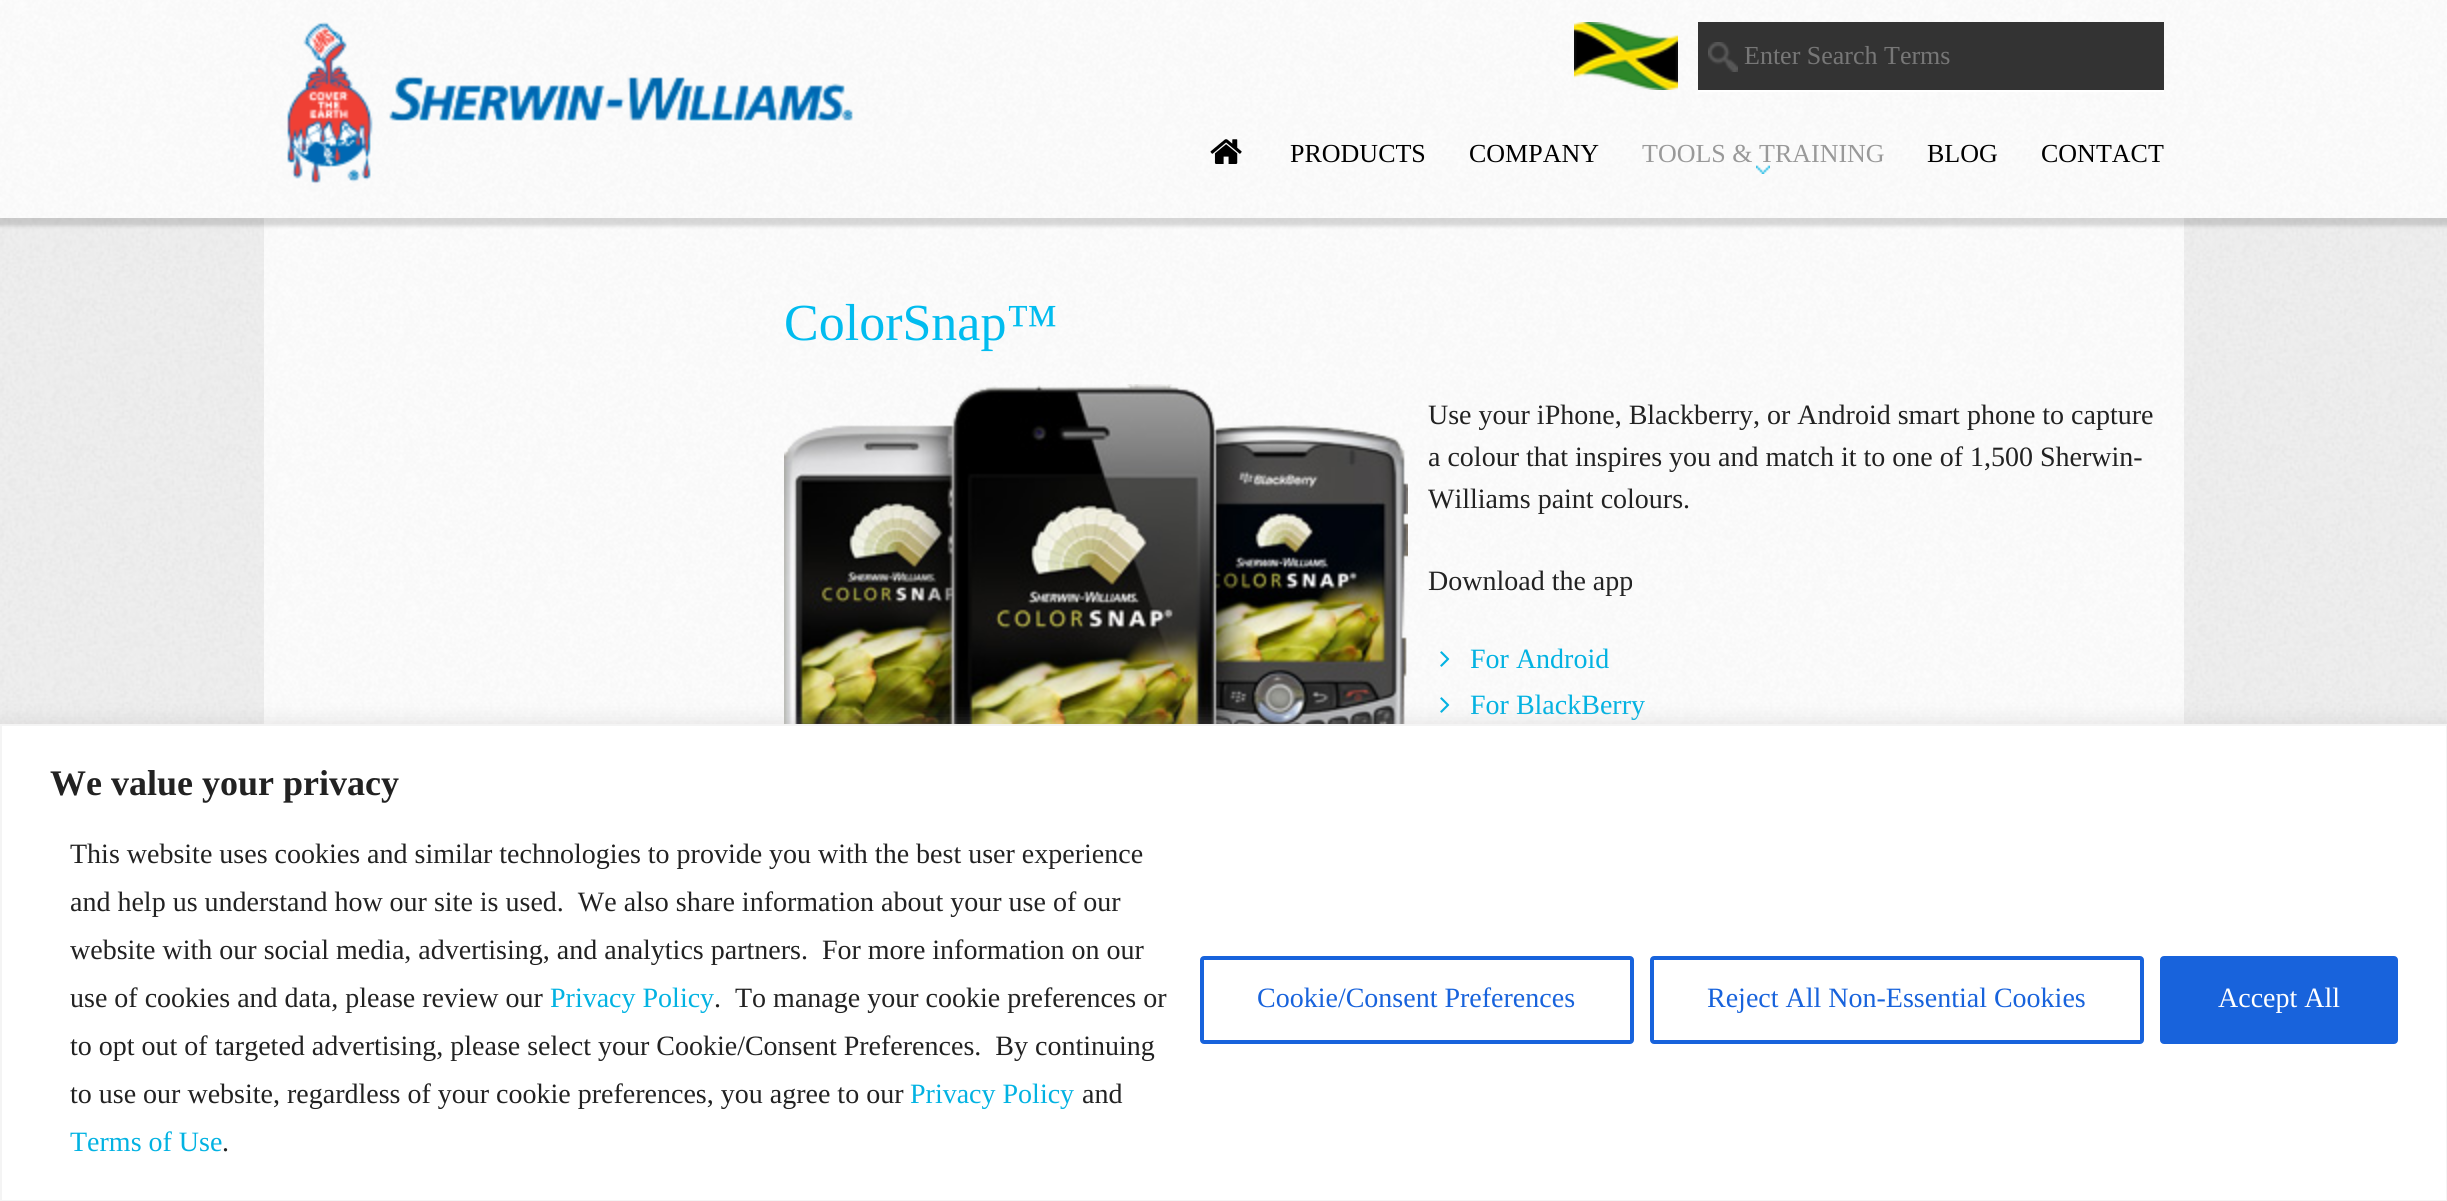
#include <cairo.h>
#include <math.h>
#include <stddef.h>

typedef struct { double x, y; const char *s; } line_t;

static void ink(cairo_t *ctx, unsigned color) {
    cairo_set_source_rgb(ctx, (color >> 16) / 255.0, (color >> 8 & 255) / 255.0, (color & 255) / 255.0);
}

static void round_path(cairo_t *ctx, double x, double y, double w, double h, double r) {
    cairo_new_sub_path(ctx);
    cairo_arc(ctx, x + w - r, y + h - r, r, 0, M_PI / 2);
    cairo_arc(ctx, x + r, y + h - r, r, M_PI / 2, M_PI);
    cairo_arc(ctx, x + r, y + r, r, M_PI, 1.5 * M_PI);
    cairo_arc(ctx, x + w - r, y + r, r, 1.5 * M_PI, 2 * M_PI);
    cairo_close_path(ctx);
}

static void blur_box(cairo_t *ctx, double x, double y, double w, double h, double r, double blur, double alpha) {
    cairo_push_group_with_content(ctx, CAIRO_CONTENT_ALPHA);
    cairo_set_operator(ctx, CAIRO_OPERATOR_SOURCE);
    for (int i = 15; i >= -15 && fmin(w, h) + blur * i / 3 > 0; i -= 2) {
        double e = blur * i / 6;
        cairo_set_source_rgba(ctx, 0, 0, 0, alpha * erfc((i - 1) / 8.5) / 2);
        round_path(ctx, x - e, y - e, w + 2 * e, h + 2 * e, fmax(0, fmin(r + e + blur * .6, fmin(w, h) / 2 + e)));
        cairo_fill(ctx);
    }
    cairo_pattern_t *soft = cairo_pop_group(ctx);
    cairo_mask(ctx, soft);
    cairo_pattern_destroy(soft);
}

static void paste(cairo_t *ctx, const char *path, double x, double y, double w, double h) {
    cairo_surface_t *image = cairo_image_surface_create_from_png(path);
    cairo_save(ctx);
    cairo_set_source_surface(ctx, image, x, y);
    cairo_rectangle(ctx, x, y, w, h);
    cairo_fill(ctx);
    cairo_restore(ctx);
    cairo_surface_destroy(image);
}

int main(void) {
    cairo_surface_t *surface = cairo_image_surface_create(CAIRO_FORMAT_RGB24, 2447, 1201);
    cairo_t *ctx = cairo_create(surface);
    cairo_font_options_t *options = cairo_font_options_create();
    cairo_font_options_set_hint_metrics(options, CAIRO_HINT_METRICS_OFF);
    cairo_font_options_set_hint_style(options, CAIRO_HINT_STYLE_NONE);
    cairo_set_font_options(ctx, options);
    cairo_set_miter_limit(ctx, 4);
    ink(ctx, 0xFFFFFF);
    cairo_paint(ctx);
    paste(ctx, "media/7.png", 0, 218, 2447, 506);
    ink(ctx, 0xFFFFFF);
    cairo_rectangle(ctx, 264, 218, 1920, 506);
    cairo_fill(ctx);
    paste(ctx, "media/8.png", 264, 218, 1920, 506);
    ink(ctx, 0x000000);
    blur_box(ctx, -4, 0, 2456, 226, 0, 2, 0.15);
    ink(ctx, 0xFFFFFF);
    cairo_rectangle(ctx, 0, 0, 2447, 218);
    cairo_fill(ctx);
    paste(ctx, "media/1.png", 0, 0, 2447, 218);
    paste(ctx, "media/2.png", 287, 22, 566, 162);
    paste(ctx, "media/3.png", 1574, 22, 104, 68);
    ink(ctx, 0x333333);
    cairo_rectangle(ctx, 1698, 22, 466, 68);
    cairo_fill(ctx);
    paste(ctx, "media/4.png", 1708, 42, 30, 30);
    ink(ctx, 0xFFFFFF);
    cairo_rectangle(ctx, 1698, 90, 466, 2);
    cairo_fill(ctx);
    cairo_select_font_face(ctx, "Liberation Serif", CAIRO_FONT_SLANT_NORMAL, CAIRO_FONT_WEIGHT_NORMAL);
    cairo_set_font_size(ctx, 26);
    ink(ctx, 0x777777);
    cairo_move_to(ctx, 1744, 64);
    cairo_show_text(ctx, "Enter Search Terms");
    paste(ctx, "media/5.png", 1210, 139, 32, 25);
    ink(ctx, 0x000000);
    cairo_move_to(ctx, 1290, 162);
    cairo_show_text(ctx, "PRODUCTS");
    cairo_move_to(ctx, 1469, 162);
    cairo_show_text(ctx, "COMPANY");
    ink(ctx, 0x999999);
    cairo_move_to(ctx, 1642, 162);
    cairo_show_text(ctx, "TOOLS & TRAINING");
    ink(ctx, 0x000000);
    cairo_move_to(ctx, 1927, 162);
    cairo_show_text(ctx, "BLOG");
    cairo_move_to(ctx, 2041, 162);
    cairo_show_text(ctx, "CONTACT");
    paste(ctx, "media/6.png", 1756, 165, 14, 9);
    cairo_set_font_size(ctx, 52);
    ink(ctx, 0x01BCEF);
    cairo_move_to(ctx, 784, 340);
    cairo_show_text(ctx, "ColorSnap™");
    paste(ctx, "media/9.png", 784, 384, 624, 340);
    cairo_set_font_size(ctx, 28);
    ink(ctx, 0x222222);
    {
        static const line_t items[] = {
            {1428, 424, "Use your iPhone, Blackberry, or Android smart phone to capture"},
            {1428, 466, "a colour that inspires you and match it to one of 1,500 Sherwin-"},
            {1428, 508, "Williams paint colours."},
            {1428, 590, "Download the app"},
        };
        for (size_t i = 0; i < sizeof items / sizeof *items; i++) {
            cairo_move_to(ctx, items[i].x, items[i].y);
            cairo_show_text(ctx, items[i].s);
        }
    }
    paste(ctx, "media/10.png", 1440, 651, 10, 16);
    ink(ctx, 0x02B2E2);
    cairo_move_to(ctx, 1470, 668);
    cairo_show_text(ctx, "For Android");
    paste(ctx, "media/11.png", 1440, 697, 10, 16);
    cairo_move_to(ctx, 1470, 714);
    cairo_show_text(ctx, "For BlackBerry");
    ink(ctx, 0xACABAB);
    blur_box(ctx, 0, 722, 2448, 478, 0, 10, 0.3);
    ink(ctx, 0xFFFFFF);
    cairo_rectangle(ctx, 1, 725, 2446, 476);
    cairo_fill_preserve(ctx);
    ink(ctx, 0xF4F4F4);
    cairo_stroke(ctx);
    cairo_select_font_face(ctx, "Liberation Serif", CAIRO_FONT_SLANT_NORMAL, CAIRO_FONT_WEIGHT_BOLD);
    cairo_set_font_size(ctx, 36);
    ink(ctx, 0x222222);
    cairo_move_to(ctx, 50, 795);
    cairo_show_text(ctx, "We value your privacy");
    cairo_select_font_face(ctx, "Liberation Serif", CAIRO_FONT_SLANT_NORMAL, CAIRO_FONT_WEIGHT_NORMAL);
    cairo_set_font_size(ctx, 28);
    {
        static const line_t items[] = {
            {70, 863, "This website uses cookies and similar technologies to provide you with the best user experience"},
            {70, 911, "and help us understand how our site is used.  We also share information about your use of our"},
            {70, 959, "website with our social media, advertising, and analytics partners.  For more information on our"},
            {70, 1007, "use of cookies and data, please review our"},
        };
        for (size_t i = 0; i < sizeof items / sizeof *items; i++) {
            cairo_move_to(ctx, items[i].x, items[i].y);
            cairo_show_text(ctx, items[i].s);
        }
    }
    ink(ctx, 0x02B2E2);
    cairo_move_to(ctx, 550, 1007);
    cairo_show_text(ctx, "Privacy Policy");
    ink(ctx, 0x222222);
    {
        static const line_t items[] = {
            {714, 1007, ".  To manage your cookie preferences or"},
            {70, 1055, "to opt out of targeted advertising, please select your Cookie/Consent Preferences.  By continuing"},
            {70, 1103, "to use our website, regardless of your cookie preferences, you agree to our"},
        };
        for (size_t i = 0; i < sizeof items / sizeof *items; i++) {
            cairo_move_to(ctx, items[i].x, items[i].y);
            cairo_show_text(ctx, items[i].s);
        }
    }
    ink(ctx, 0x02B2E2);
    cairo_move_to(ctx, 910, 1103);
    cairo_show_text(ctx, "Privacy Policy");
    ink(ctx, 0x222222);
    cairo_move_to(ctx, 1082, 1103);
    cairo_show_text(ctx, "and");
    ink(ctx, 0x02B2E2);
    cairo_move_to(ctx, 70, 1151);
    cairo_show_text(ctx, "Terms of Use");
    ink(ctx, 0x222222);
    cairo_move_to(ctx, 222, 1151);
    cairo_show_text(ctx, ".");
    round_path(ctx, 1202, 958, 430, 84, 2);
    ink(ctx, 0x1863DC);
    cairo_set_line_width(ctx, 4);
    cairo_stroke(ctx);
    cairo_move_to(ctx, 1257, 1007);
    cairo_show_text(ctx, "Cookie/Consent Preferences");
    round_path(ctx, 1652, 958, 490, 84, 2);
    cairo_stroke(ctx);
    cairo_move_to(ctx, 1707, 1007);
    cairo_show_text(ctx, "Reject All Non-Essential Cookies");
    round_path(ctx, 2162, 958, 234, 84, 2);
    cairo_fill_preserve(ctx);
    cairo_stroke(ctx);
    ink(ctx, 0xFFFFFF);
    cairo_move_to(ctx, 2218, 1007);
    cairo_show_text(ctx, "Accept All");
    cairo_surface_write_to_png(surface, "image.png");
    cairo_font_options_destroy(options);
    cairo_destroy(ctx);
    cairo_surface_destroy(surface);
    return 0;
}
